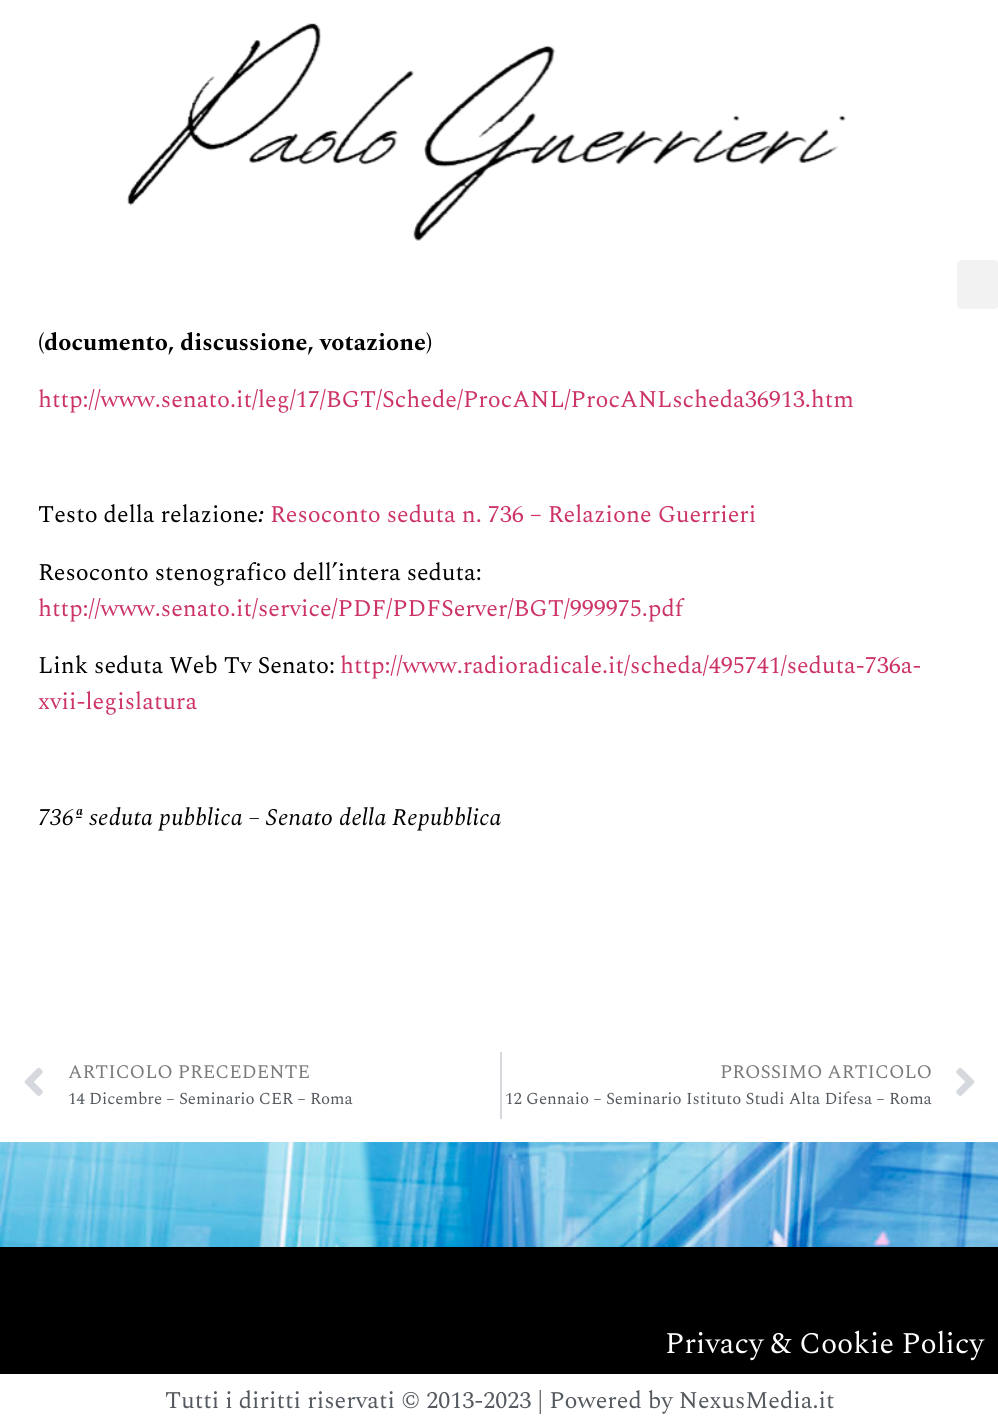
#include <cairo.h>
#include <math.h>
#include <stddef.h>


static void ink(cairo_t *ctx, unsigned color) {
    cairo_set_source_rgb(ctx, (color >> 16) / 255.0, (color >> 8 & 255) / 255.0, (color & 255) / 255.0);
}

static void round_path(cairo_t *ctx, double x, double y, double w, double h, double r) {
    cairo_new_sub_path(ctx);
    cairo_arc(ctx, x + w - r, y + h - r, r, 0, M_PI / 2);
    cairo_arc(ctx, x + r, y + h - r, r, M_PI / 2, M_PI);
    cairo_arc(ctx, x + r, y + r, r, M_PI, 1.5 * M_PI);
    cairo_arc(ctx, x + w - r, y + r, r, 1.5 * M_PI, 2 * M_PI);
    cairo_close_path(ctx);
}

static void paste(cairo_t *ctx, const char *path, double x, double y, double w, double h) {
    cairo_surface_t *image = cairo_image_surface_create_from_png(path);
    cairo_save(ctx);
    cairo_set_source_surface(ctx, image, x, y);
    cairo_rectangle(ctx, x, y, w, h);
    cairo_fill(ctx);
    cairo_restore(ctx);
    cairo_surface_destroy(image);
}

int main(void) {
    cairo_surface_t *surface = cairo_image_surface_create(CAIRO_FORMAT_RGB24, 998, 1428);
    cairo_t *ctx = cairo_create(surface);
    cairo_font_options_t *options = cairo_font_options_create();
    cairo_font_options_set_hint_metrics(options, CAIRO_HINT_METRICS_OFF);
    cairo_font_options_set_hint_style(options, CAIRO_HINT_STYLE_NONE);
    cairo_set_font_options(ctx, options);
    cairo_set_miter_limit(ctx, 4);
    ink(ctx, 0xFFFFFF);
    cairo_paint(ctx);
    paste(ctx, "media/1.png", 0, 1142, 998, 105);
    paste(ctx, "media/2.png", 127, 23, 719, 218);
    ink(ctx, 0xF2F2F2);
    round_path(ctx, 957, 260, 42, 49, 5);
    cairo_fill(ctx);
    cairo_select_font_face(ctx, "Spectral", CAIRO_FONT_SLANT_NORMAL, CAIRO_FONT_WEIGHT_BOLD);
    cairo_set_font_size(ctx, 24);
    ink(ctx, 0x000000);
    cairo_move_to(ctx, 38, 350);
    cairo_show_text(ctx, "(documento, discussione, votazione)");
    cairo_select_font_face(ctx, "Spectral", CAIRO_FONT_SLANT_NORMAL, CAIRO_FONT_WEIGHT_NORMAL);
    ink(ctx, 0xCC3366);
    cairo_move_to(ctx, 38, 407);
    cairo_show_text(ctx, "http://www.senato.it/leg/17/BGT/Schede/ProcANL/ProcANLscheda36913.htm");
    ink(ctx, 0x000000);
    cairo_move_to(ctx, 38, 522);
    cairo_show_text(ctx, "Testo della relazione");
    cairo_select_font_face(ctx, "Spectral", CAIRO_FONT_SLANT_ITALIC, CAIRO_FONT_WEIGHT_BOLD);
    cairo_move_to(ctx, 258, 522);
    cairo_show_text(ctx, ":");
    cairo_select_font_face(ctx, "Spectral", CAIRO_FONT_SLANT_NORMAL, CAIRO_FONT_WEIGHT_NORMAL);
    ink(ctx, 0xCC3366);
    cairo_move_to(ctx, 270, 522);
    cairo_show_text(ctx, "Resoconto seduta n. 736 – Relazione Guerrieri");
    ink(ctx, 0x000000);
    cairo_move_to(ctx, 38, 580);
    cairo_show_text(ctx, "Resoconto stenografico dell’intera seduta:");
    ink(ctx, 0xCC3366);
    cairo_move_to(ctx, 38, 616);
    cairo_show_text(ctx, "http://www.senato.it/service/PDF/PDFServer/BGT/999975.pdf");
    ink(ctx, 0x000000);
    cairo_move_to(ctx, 38, 673);
    cairo_show_text(ctx, "Link seduta Web Tv Senato:");
    ink(ctx, 0xCC3366);
    cairo_move_to(ctx, 340, 673);
    cairo_show_text(ctx, "http://www.radioradicale.it/scheda/495741/seduta-736a-");
    cairo_move_to(ctx, 38, 709);
    cairo_show_text(ctx, "xvii-legislatura");
    cairo_select_font_face(ctx, "Spectral", CAIRO_FONT_SLANT_ITALIC, CAIRO_FONT_WEIGHT_NORMAL);
    ink(ctx, 0x000000);
    cairo_move_to(ctx, 38, 825);
    cairo_show_text(ctx, "736ª seduta pubblica – Senato della Repubblica");
    paste(ctx, "media/3.png", 24, 1067, 19, 29);
    cairo_select_font_face(ctx, "Spectral", CAIRO_FONT_SLANT_NORMAL, CAIRO_FONT_WEIGHT_NORMAL);
    cairo_set_font_size(ctx, 19.25);
    ink(ctx, 0x7A7A7A);
    cairo_move_to(ctx, 68, 1078);
    cairo_show_text(ctx, "ARTICOLO PRECEDENTE");
    cairo_set_font_size(ctx, 16.8);
    ink(ctx, 0x54595F);
    cairo_move_to(ctx, 68, 1104);
    cairo_show_text(ctx, "14 Dicembre – Seminario CER – Roma");
    ink(ctx, 0xD5D8DC);
    cairo_rectangle(ctx, 500, 1052, 2, 67);
    cairo_fill(ctx);
    cairo_set_font_size(ctx, 19.25);
    ink(ctx, 0x7A7A7A);
    cairo_move_to(ctx, 720, 1078);
    cairo_show_text(ctx, "PROSSIMO ARTICOLO");
    cairo_set_font_size(ctx, 16.8);
    ink(ctx, 0x54595F);
    cairo_move_to(ctx, 505, 1104);
    cairo_show_text(ctx, "12 Gennaio – Seminario Istituto Studi Alta Difesa – Roma");
    paste(ctx, "media/4.png", 956, 1067, 19, 29);
    ink(ctx, 0x000000);
    cairo_rectangle(ctx, 0, 1247, 998, 127);
    cairo_fill(ctx);
    cairo_set_font_size(ctx, 30);
    ink(ctx, 0xFFFFFF);
    cairo_move_to(ctx, 665, 1353);
    cairo_show_text(ctx, "Privacy & Cookie Policy");
    cairo_set_font_size(ctx, 24);
    ink(ctx, 0x54595F);
    cairo_move_to(ctx, 165, 1408);
    cairo_show_text(ctx, "Tutti i diritti riservati © 2013-2023 | Powered by NexusMedia.it");
    cairo_surface_write_to_png(surface, "image.png");
    cairo_font_options_destroy(options);
    cairo_destroy(ctx);
    cairo_surface_destroy(surface);
    return 0;
}
